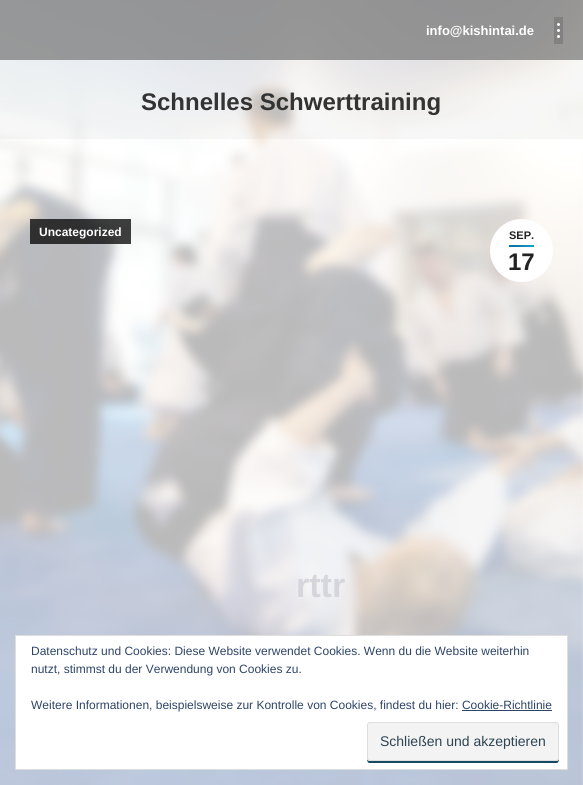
#include <cairo.h>
#include <math.h>
#include <stddef.h>

typedef struct { double x, y; const char *s; } line_t;

static void ink(cairo_t *ctx, unsigned color) {
    cairo_set_source_rgb(ctx, (color >> 16) / 255.0, (color >> 8 & 255) / 255.0, (color & 255) / 255.0);
}

static void round_path(cairo_t *ctx, double x, double y, double w, double h, double r) {
    cairo_new_sub_path(ctx);
    cairo_arc(ctx, x + w - r, y + h - r, r, 0, M_PI / 2);
    cairo_arc(ctx, x + r, y + h - r, r, M_PI / 2, M_PI);
    cairo_arc(ctx, x + r, y + r, r, M_PI, 1.5 * M_PI);
    cairo_arc(ctx, x + w - r, y + r, r, 1.5 * M_PI, 2 * M_PI);
    cairo_close_path(ctx);
}

static void paste(cairo_t *ctx, const char *path, double x, double y, double w, double h) {
    cairo_surface_t *image = cairo_image_surface_create_from_png(path);
    cairo_save(ctx);
    cairo_set_source_surface(ctx, image, x, y);
    cairo_rectangle(ctx, x, y, w, h);
    cairo_fill(ctx);
    cairo_restore(ctx);
    cairo_surface_destroy(image);
}

int main(void) {
    cairo_surface_t *surface = cairo_image_surface_create(CAIRO_FORMAT_RGB24, 583, 785);
    cairo_t *ctx = cairo_create(surface);
    cairo_font_options_t *options = cairo_font_options_create();
    cairo_font_options_set_hint_metrics(options, CAIRO_HINT_METRICS_OFF);
    cairo_font_options_set_hint_style(options, CAIRO_HINT_STYLE_NONE);
    cairo_set_font_options(ctx, options);
    cairo_set_miter_limit(ctx, 4);
    cairo_pattern_t *gradient;
    ink(ctx, 0xFFFFFF);
    cairo_paint(ctx);
    paste(ctx, "media/1.png", 0, 0, 583, 785);
    cairo_set_source_rgba(ctx, 0.478, 0.478, 0.478, 0.76);
    cairo_rectangle(ctx, 0, 0, 583, 60);
    cairo_fill(ctx);
    cairo_select_font_face(ctx, "Liberation Sans", CAIRO_FONT_SLANT_NORMAL, CAIRO_FONT_WEIGHT_BOLD);
    cairo_set_font_size(ctx, 13);
    ink(ctx, 0xFFFFFF);
    cairo_move_to(ctx, 426, 35);
    cairo_show_text(ctx, "info@kishintai.de");
    cairo_set_source_rgba(ctx, 0.478, 0.478, 0.478, 0.76);
    cairo_rectangle(ctx, 554, 17, 9, 27);
    cairo_fill(ctx);
    ink(ctx, 0xFFFFFF);
    cairo_arc(ctx, 558.5, 24.5, 1.5, 0, 2 * M_PI);
    cairo_fill(ctx);
    cairo_arc(ctx, 558.5, 30.5, 1.5, 0, 2 * M_PI);
    cairo_fill(ctx);
    cairo_arc(ctx, 558.5, 36.5, 1.5, 0, 2 * M_PI);
    cairo_fill(ctx);
    cairo_set_source_rgba(ctx, 0.667, 0.667, 0.667, 0.1);
    cairo_rectangle(ctx, 0, 60, 583, 79);
    cairo_fill(ctx);
    cairo_set_font_size(ctx, 24);
    ink(ctx, 0x333333);
    cairo_move_to(ctx, 141, 110);
    cairo_show_text(ctx, "Schnelles Schwerttraining");
    cairo_set_source_rgba(ctx, 0, 0, 0, 0.75);
    cairo_rectangle(ctx, 30, 219, 101, 25);
    cairo_fill(ctx);
    cairo_set_font_size(ctx, 12);
    ink(ctx, 0xFFFFFF);
    cairo_move_to(ctx, 39, 236);
    cairo_show_text(ctx, "Uncategorized");
    cairo_new_path(ctx);
    cairo_arc(ctx, 521.5, 250.5, 31.5, 0, 2 * M_PI);
    cairo_fill(ctx);
    cairo_set_font_size(ctx, 11);
    ink(ctx, 0x222222);
    cairo_move_to(ctx, 509, 239);
    cairo_show_text(ctx, "SEP.");
    gradient = cairo_pattern_create_linear(509, 243, 534, 249);
    cairo_pattern_add_color_stop_rgba(gradient, 0.3, 0.051, 0.463, 0.651, 1);
    cairo_pattern_add_color_stop_rgba(gradient, 1, 0.075, 0.659, 0.776, 1);
    cairo_set_source(ctx, gradient);
    cairo_pattern_destroy(gradient);
    cairo_rectangle(ctx, 509, 245, 25, 2);
    cairo_fill(ctx);
    cairo_set_font_size(ctx, 24);
    ink(ctx, 0x222222);
    cairo_move_to(ctx, 508, 270);
    cairo_show_text(ctx, "17");
    cairo_set_font_size(ctx, 34);
    ink(ctx, 0xD5D5DB);
    cairo_move_to(ctx, 296, 597);
    cairo_show_text(ctx, "rttr");
    ink(ctx, 0xFFFFFF);
    cairo_rectangle(ctx, 15.5, 635.5, 552, 134);
    cairo_fill_preserve(ctx);
    ink(ctx, 0xDEDEDE);
    cairo_set_line_width(ctx, 1);
    cairo_stroke(ctx);
    cairo_select_font_face(ctx, "Liberation Sans", CAIRO_FONT_SLANT_NORMAL, CAIRO_FONT_WEIGHT_NORMAL);
    cairo_set_font_size(ctx, 12);
    ink(ctx, 0x2E4467);
    {
        static const line_t items[] = {
            {31, 655, "Datenschutz und Cookies: Diese Website verwendet Cookies. Wenn du die Website weiterhin"},
            {31, 673, "nutzt, stimmst du der Verwendung von Cookies zu."},
            {31, 709, "Weitere Informationen, beispielsweise zur Kontrolle von Cookies, findest du hier: Cookie-Richtlinie"},
        };
        for (size_t i = 0; i < sizeof items / sizeof *items; i++) {
            cairo_move_to(ctx, items[i].x, items[i].y);
            cairo_show_text(ctx, items[i].s);
        }
    }
    cairo_rectangle(ctx, 462, 710, 90, 1);
    cairo_fill(ctx);
    ink(ctx, 0x144961);
    cairo_new_path(ctx);
    cairo_move_to(ctx, 367, 758);
    cairo_curve_to(ctx, 367, 760, 367, 762, 369, 763);
    cairo_line_to(ctx, 557, 763);
    cairo_curve_to(ctx, 559, 762, 559, 760, 559, 758);
    cairo_curve_to(ctx, 559, 760, 558, 761, 556, 761);
    cairo_line_to(ctx, 370, 761);
    cairo_curve_to(ctx, 368, 761, 367, 760, 367, 758);
    cairo_close_path(ctx);
    cairo_fill(ctx);
    ink(ctx, 0xF3F3F3);
    round_path(ctx, 367.5, 722.5, 191, 38, 2.5);
    cairo_fill_preserve(ctx);
    ink(ctx, 0xDEDEDE);
    cairo_stroke(ctx);
    cairo_set_font_size(ctx, 14);
    ink(ctx, 0x2E4453);
    cairo_move_to(ctx, 380, 746);
    cairo_show_text(ctx, "Schließen und akzeptieren");
    cairo_surface_write_to_png(surface, "image.png");
    cairo_font_options_destroy(options);
    cairo_destroy(ctx);
    cairo_surface_destroy(surface);
    return 0;
}
